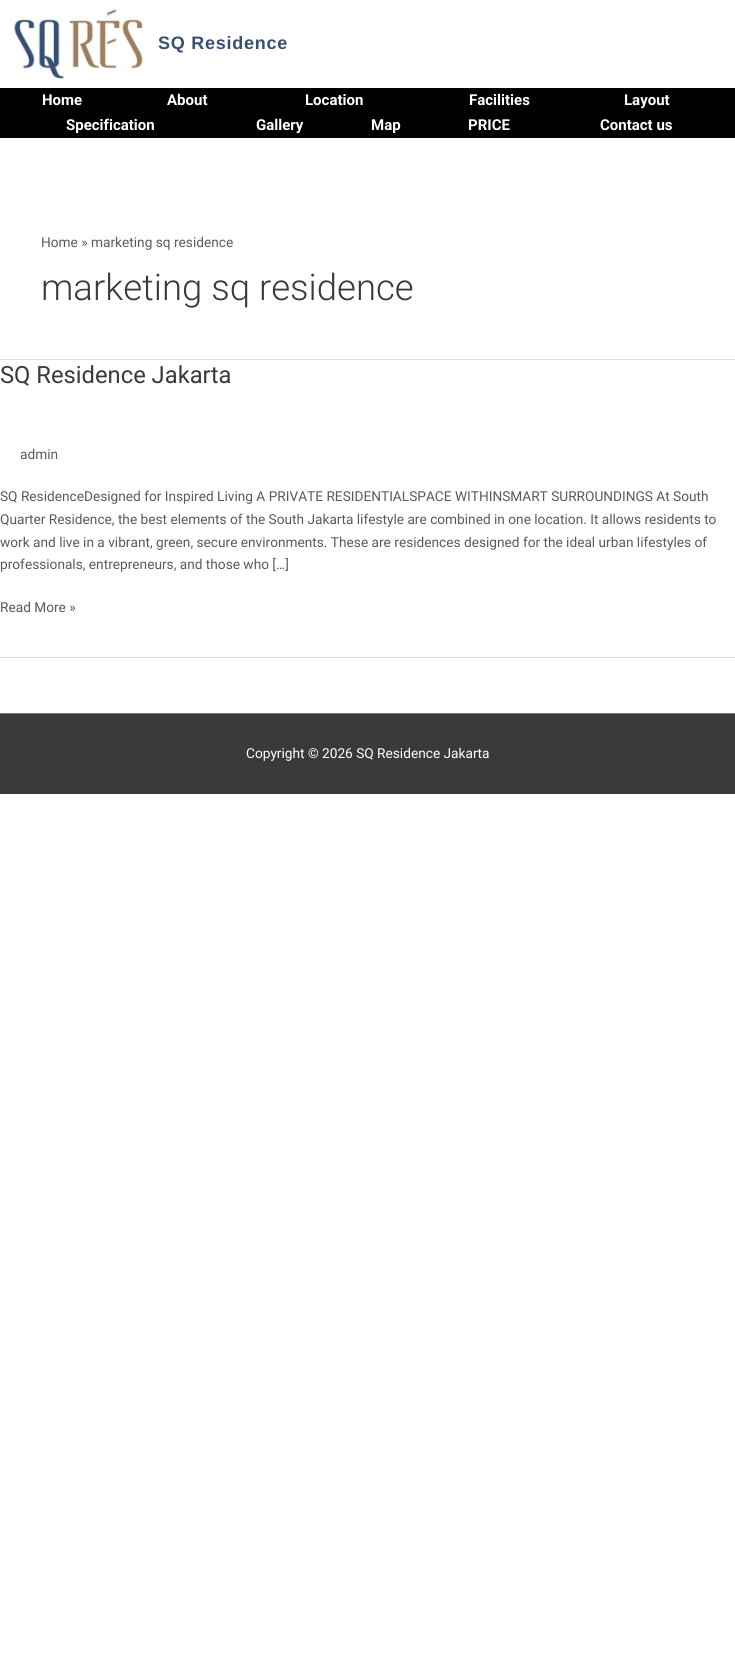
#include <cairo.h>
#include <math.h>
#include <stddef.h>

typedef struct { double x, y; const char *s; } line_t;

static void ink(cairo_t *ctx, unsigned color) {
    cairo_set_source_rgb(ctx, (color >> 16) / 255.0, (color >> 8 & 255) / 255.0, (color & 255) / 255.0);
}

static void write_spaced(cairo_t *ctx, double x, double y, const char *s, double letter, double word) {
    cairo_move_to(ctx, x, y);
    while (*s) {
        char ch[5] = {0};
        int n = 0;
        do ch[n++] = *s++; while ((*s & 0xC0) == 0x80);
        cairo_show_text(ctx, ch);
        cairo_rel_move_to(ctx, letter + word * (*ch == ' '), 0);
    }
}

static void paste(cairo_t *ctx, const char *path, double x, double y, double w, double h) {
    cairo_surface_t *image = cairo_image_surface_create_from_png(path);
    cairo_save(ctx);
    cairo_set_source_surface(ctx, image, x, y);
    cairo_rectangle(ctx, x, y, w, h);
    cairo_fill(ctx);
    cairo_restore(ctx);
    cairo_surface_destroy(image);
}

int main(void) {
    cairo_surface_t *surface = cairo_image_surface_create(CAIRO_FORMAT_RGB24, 735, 1680);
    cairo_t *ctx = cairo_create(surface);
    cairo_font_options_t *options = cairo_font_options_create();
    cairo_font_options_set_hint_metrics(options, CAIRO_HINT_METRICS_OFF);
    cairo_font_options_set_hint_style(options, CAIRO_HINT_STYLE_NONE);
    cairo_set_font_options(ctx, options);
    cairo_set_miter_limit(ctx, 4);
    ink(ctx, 0xFFFFFF);
    cairo_paint(ctx);
    paste(ctx, "media/1.png", 12, 9, 133, 72);
    cairo_select_font_face(ctx, "Liberation Sans", CAIRO_FONT_SLANT_NORMAL, CAIRO_FONT_WEIGHT_BOLD);
    cairo_set_font_size(ctx, 18);
    ink(ctx, 0x385172);
    write_spaced(ctx, 158, 49, "SQ Residence", 0.75, 0);
    ink(ctx, 0x000000);
    cairo_rectangle(ctx, 0, 88, 735, 50);
    cairo_fill(ctx);
    cairo_select_font_face(ctx, "Roboto", CAIRO_FONT_SLANT_NORMAL, CAIRO_FONT_WEIGHT_BOLD);
    cairo_set_font_size(ctx, 15);
    ink(ctx, 0xFFFFFF);
    {
        static const line_t items[] = {
            {42, 105, "Home"},
            {167, 105, "About"},
            {305, 105, "Location"},
            {469, 105, "Facilities"},
            {624, 105, "Layout"},
            {66, 130, "Specification"},
            {256, 130, "Gallery"},
            {371, 130, "Map"},
            {468, 130, "PRICE"},
            {600, 130, "Contact us"},
        };
        for (size_t i = 0; i < sizeof items / sizeof *items; i++) {
            cairo_move_to(ctx, items[i].x, items[i].y);
            cairo_show_text(ctx, items[i].s);
        }
    }
    ink(ctx, 0xDDDDDD);
    cairo_rectangle(ctx, 0, 359, 735, 1);
    cairo_fill(ctx);
    cairo_select_font_face(ctx, "Roboto", CAIRO_FONT_SLANT_NORMAL, CAIRO_FONT_WEIGHT_NORMAL);
    cairo_set_font_size(ctx, 13.68);
    ink(ctx, 0x5A5A5A);
    cairo_move_to(ctx, 41, 247);
    cairo_show_text(ctx, "Home » marketing sq residence");
    cairo_select_font_face(ctx, "Roboto Light", CAIRO_FONT_SLANT_NORMAL, CAIRO_FONT_WEIGHT_NORMAL);
    cairo_set_font_size(ctx, 36.5);
    ink(ctx, 0x3A3A3A);
    cairo_move_to(ctx, 41, 300);
    cairo_show_text(ctx, "marketing sq residence");
    ink(ctx, 0xDDDDDD);
    cairo_rectangle(ctx, 0, 657, 735, 1);
    cairo_fill(ctx);
    cairo_select_font_face(ctx, "Roboto", CAIRO_FONT_SLANT_NORMAL, CAIRO_FONT_WEIGHT_NORMAL);
    cairo_set_font_size(ctx, 23.75);
    ink(ctx, 0x3A3A3A);
    cairo_move_to(ctx, 0, 383);
    cairo_show_text(ctx, "SQ Residence Jakarta");
    cairo_set_font_size(ctx, 13.68);
    ink(ctx, 0x5A5A5A);
    {
        static const line_t items[] = {
            {20, 459, "admin"},
            {0, 501, "SQ ResidenceDesigned for Inspired Living A PRIVATE RESIDENTIALSPACE WITHINSMART SURROUNDINGS At South"},
            {0, 524, "Quarter Residence, the best elements of the South Jakarta lifestyle are combined in one location. It allows residents to"},
            {0, 547, "work and live in a vibrant, green, secure environments. These are residences designed for the ideal urban lifestyles of"},
            {0, 569, "professionals, entrepreneurs, and those who […]"},
            {0, 612, "Read More »"},
        };
        for (size_t i = 0; i < sizeof items / sizeof *items; i++) {
            cairo_move_to(ctx, items[i].x, items[i].y);
            cairo_show_text(ctx, items[i].s);
        }
    }
    ink(ctx, 0x7A7A7A);
    cairo_rectangle(ctx, 0, 713, 735, 1);
    cairo_fill(ctx);
    ink(ctx, 0x3A3A3A);
    cairo_rectangle(ctx, 0, 714, 735, 80);
    cairo_fill(ctx);
    ink(ctx, 0xFFFFFF);
    cairo_move_to(ctx, 246, 758);
    cairo_show_text(ctx, "Copyright © 2026 SQ Residence Jakarta");
    cairo_surface_write_to_png(surface, "image.png");
    cairo_font_options_destroy(options);
    cairo_destroy(ctx);
    cairo_surface_destroy(surface);
    return 0;
}
